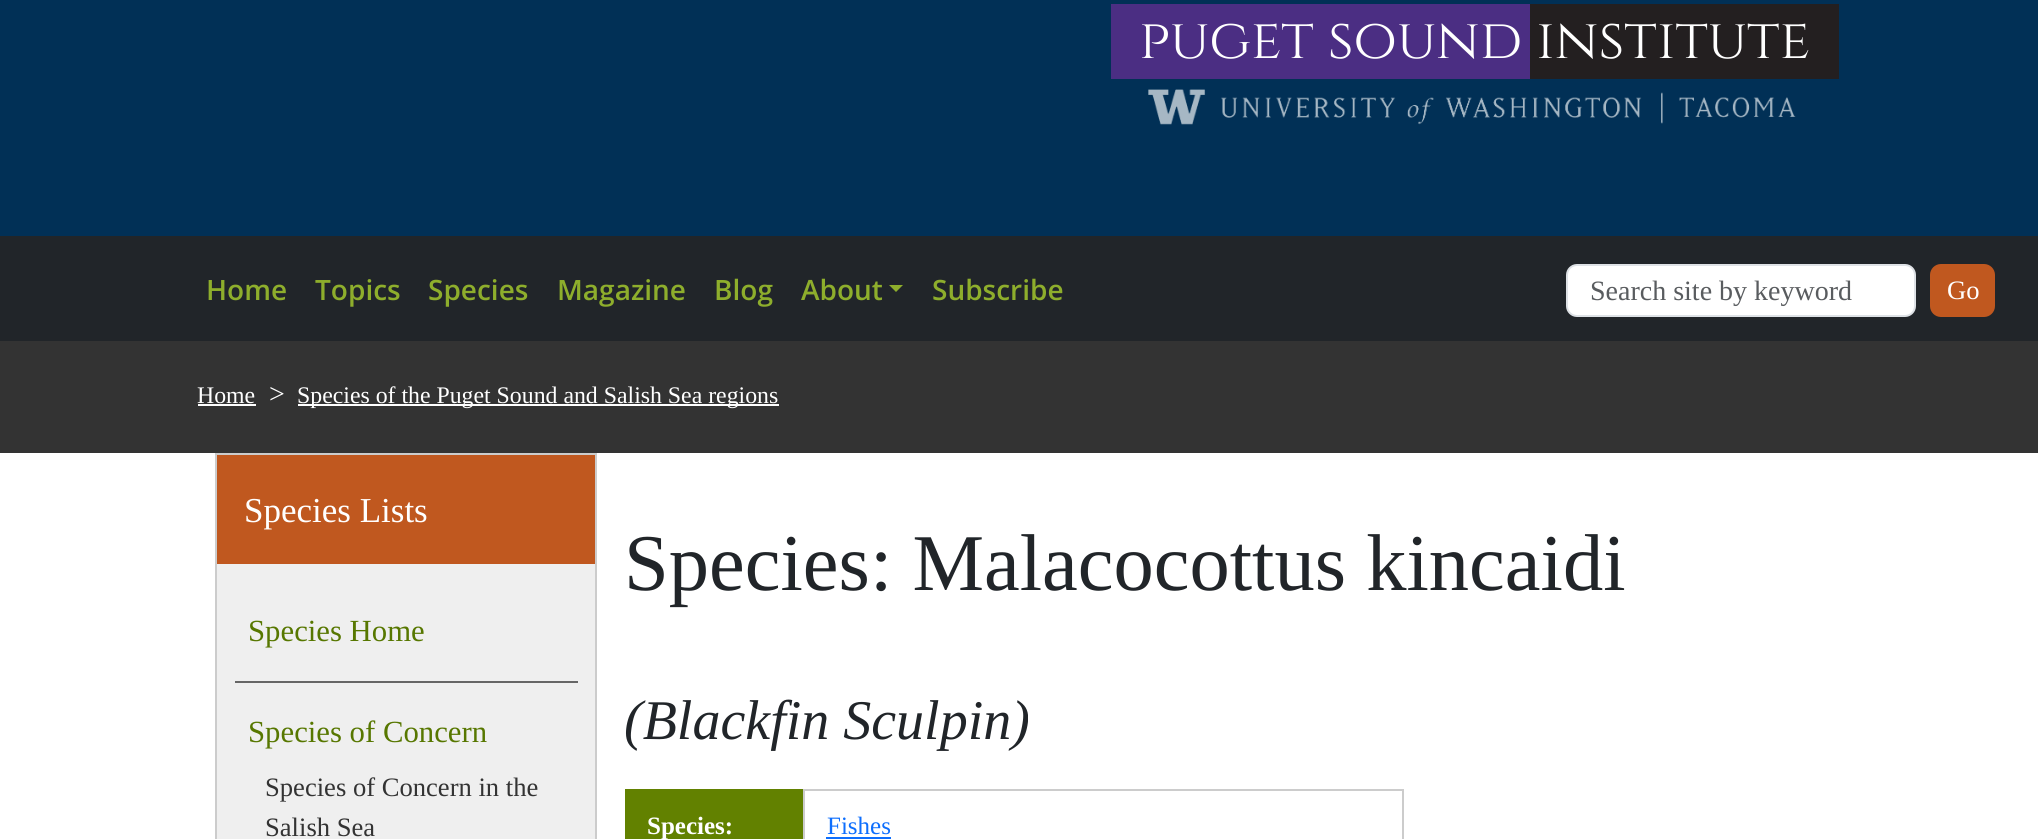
#include <cairo.h>
#include <math.h>
#include <stddef.h>

typedef struct { double x, y; const char *s; } line_t;

static void ink(cairo_t *ctx, unsigned color) {
    cairo_set_source_rgb(ctx, (color >> 16) / 255.0, (color >> 8 & 255) / 255.0, (color & 255) / 255.0);
}

static void round_path(cairo_t *ctx, double x, double y, double w, double h, double r) {
    cairo_new_sub_path(ctx);
    cairo_arc(ctx, x + w - r, y + h - r, r, 0, M_PI / 2);
    cairo_arc(ctx, x + r, y + h - r, r, M_PI / 2, M_PI);
    cairo_arc(ctx, x + r, y + r, r, M_PI, 1.5 * M_PI);
    cairo_arc(ctx, x + w - r, y + r, r, 1.5 * M_PI, 2 * M_PI);
    cairo_close_path(ctx);
}

static void paste(cairo_t *ctx, const char *path, double x, double y, double w, double h) {
    cairo_surface_t *image = cairo_image_surface_create_from_png(path);
    cairo_save(ctx);
    cairo_set_source_surface(ctx, image, x, y);
    cairo_rectangle(ctx, x, y, w, h);
    cairo_fill(ctx);
    cairo_restore(ctx);
    cairo_surface_destroy(image);
}

int main(void) {
    cairo_surface_t *surface = cairo_image_surface_create(CAIRO_FORMAT_RGB24, 2038, 839);
    cairo_t *ctx = cairo_create(surface);
    cairo_font_options_t *options = cairo_font_options_create();
    cairo_font_options_set_hint_metrics(options, CAIRO_HINT_METRICS_OFF);
    cairo_font_options_set_hint_style(options, CAIRO_HINT_STYLE_NONE);
    cairo_set_font_options(ctx, options);
    cairo_set_miter_limit(ctx, 4);
    ink(ctx, 0xFFFFFF);
    cairo_paint(ctx);
    ink(ctx, 0x013056);
    cairo_rectangle(ctx, 0, 0, 2038, 236);
    cairo_fill(ctx);
    ink(ctx, 0x4B2E83);
    cairo_rectangle(ctx, 1111, 4, 419, 75);
    cairo_fill(ctx);
    cairo_select_font_face(ctx, "Cinzel", CAIRO_FONT_SLANT_NORMAL, CAIRO_FONT_WEIGHT_NORMAL);
    cairo_set_font_size(ctx, 56);
    ink(ctx, 0xFFFFFF);
    cairo_move_to(ctx, 1139, 58);
    cairo_show_text(ctx, "puget sound");
    ink(ctx, 0x231F20);
    cairo_rectangle(ctx, 1530, 4, 309, 75);
    cairo_fill(ctx);
    ink(ctx, 0xFFFFFF);
    cairo_move_to(ctx, 1536, 58);
    cairo_show_text(ctx, "institute");
    paste(ctx, "media/1.png", 1148, 89, 648, 36);
    ink(ctx, 0x212529);
    cairo_rectangle(ctx, 0, 236, 2038, 105);
    cairo_fill(ctx);
    cairo_select_font_face(ctx, "Open Sans SemiBold", CAIRO_FONT_SLANT_NORMAL, CAIRO_FONT_WEIGHT_NORMAL);
    cairo_set_font_size(ctx, 28);
    ink(ctx, 0x8EAE2C);
    {
        static const line_t items[] = {
            {206, 300, "Home"},
            {315, 300, "Topics"},
            {428, 300, "Species"},
            {557, 300, "Magazine"},
            {714, 300, "Blog"},
            {801, 300, "About"},
        };
        for (size_t i = 0; i < sizeof items / sizeof *items; i++) {
            cairo_move_to(ctx, items[i].x, items[i].y);
            cairo_show_text(ctx, items[i].s);
        }
    }
    cairo_new_path(ctx);
    cairo_move_to(ctx, 889, 285);
    cairo_line_to(ctx, 903, 285);
    cairo_line_to(ctx, 896, 292);
    cairo_close_path(ctx);
    cairo_fill(ctx);
    cairo_move_to(ctx, 932, 300);
    cairo_show_text(ctx, "Subscribe");
    ink(ctx, 0xFFFFFF);
    round_path(ctx, 1567, 265, 348, 51, 10);
    cairo_fill_preserve(ctx);
    ink(ctx, 0xDEE2E6);
    cairo_stroke(ctx);
    cairo_select_font_face(ctx, "Liberation Serif", CAIRO_FONT_SLANT_NORMAL, CAIRO_FONT_WEIGHT_NORMAL);
    ink(ctx, 0x595C5F);
    cairo_move_to(ctx, 1590, 300);
    cairo_show_text(ctx, "Search site by keyword");
    ink(ctx, 0xC0581F);
    round_path(ctx, 1931, 265, 63, 51, 10);
    cairo_fill_preserve(ctx);
    cairo_stroke(ctx);
    cairo_set_font_size(ctx, 26.6);
    ink(ctx, 0xFFFFFF);
    cairo_move_to(ctx, 1947, 299);
    cairo_show_text(ctx, "Go");
    ink(ctx, 0x333333);
    cairo_rectangle(ctx, 0, 341, 2038, 112);
    cairo_fill(ctx);
    cairo_set_font_size(ctx, 23.8);
    ink(ctx, 0xFFFFFF);
    cairo_move_to(ctx, 197, 403);
    cairo_show_text(ctx, "Home");
    cairo_rectangle(ctx, 198, 404, 58, 2);
    cairo_fill(ctx);
    cairo_set_font_size(ctx, 28);
    cairo_move_to(ctx, 269, 403);
    cairo_show_text(ctx, ">");
    cairo_rectangle(ctx, 298, 404, 481, 2);
    cairo_fill(ctx);
    cairo_set_font_size(ctx, 23.8);
    cairo_move_to(ctx, 297, 403);
    cairo_show_text(ctx, "Species of the Puget Sound and Salish Sea regions");
    ink(ctx, 0xEFEFEF);
    cairo_rectangle(ctx, 217, 564, 378, 275);
    cairo_fill(ctx);
    cairo_rectangle(ctx, 216, 454, 380, 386);
    ink(ctx, 0xCCCCCC);
    cairo_stroke(ctx);
    ink(ctx, 0xC0581F);
    cairo_rectangle(ctx, 217, 455, 378, 109);
    cairo_fill(ctx);
    cairo_set_font_size(ctx, 35);
    ink(ctx, 0xFFFFFF);
    cairo_move_to(ctx, 244, 522);
    cairo_show_text(ctx, "Species Lists");
    cairo_set_font_size(ctx, 30.75);
    ink(ctx, 0x577700);
    cairo_move_to(ctx, 248, 641);
    cairo_show_text(ctx, "Species Home");
    ink(ctx, 0x666666);
    cairo_rectangle(ctx, 235, 681, 343, 2);
    cairo_fill(ctx);
    ink(ctx, 0x577700);
    cairo_move_to(ctx, 248, 742);
    cairo_show_text(ctx, "Species of Concern");
    cairo_set_font_size(ctx, 26.6);
    ink(ctx, 0x333333);
    cairo_move_to(ctx, 265, 796);
    cairo_show_text(ctx, "Species of Concern in the");
    cairo_move_to(ctx, 265, 836);
    cairo_show_text(ctx, "Salish Sea");
    cairo_set_font_size(ctx, 80.5);
    ink(ctx, 0x212529);
    cairo_move_to(ctx, 624, 590);
    cairo_show_text(ctx, "Species: Malacocottus kincaidi");
    cairo_select_font_face(ctx, "Liberation Serif", CAIRO_FONT_SLANT_ITALIC, CAIRO_FONT_WEIGHT_NORMAL);
    cairo_set_font_size(ctx, 56);
    cairo_move_to(ctx, 624, 739);
    cairo_show_text(ctx, "(Blackfin Sculpin)");
    ink(ctx, 0x628100);
    cairo_rectangle(ctx, 625, 789, 178, 50);
    cairo_fill(ctx);
    cairo_select_font_face(ctx, "Liberation Serif", CAIRO_FONT_SLANT_NORMAL, CAIRO_FONT_WEIGHT_BOLD);
    cairo_set_font_size(ctx, 25);
    ink(ctx, 0xFFFFFF);
    cairo_move_to(ctx, 647, 834);
    cairo_show_text(ctx, "Species:");
    cairo_rectangle(ctx, 804, 790, 599, 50);
    ink(ctx, 0xCCCCCC);
    cairo_stroke(ctx);
    cairo_select_font_face(ctx, "Liberation Serif", CAIRO_FONT_SLANT_NORMAL, CAIRO_FONT_WEIGHT_NORMAL);
    ink(ctx, 0x0D6EFD);
    cairo_move_to(ctx, 827, 834);
    cairo_show_text(ctx, "Fishes");
    cairo_rectangle(ctx, 826, 837, 65, 2);
    cairo_fill(ctx);
    cairo_surface_write_to_png(surface, "image.png");
    cairo_font_options_destroy(options);
    cairo_destroy(ctx);
    cairo_surface_destroy(surface);
    return 0;
}
